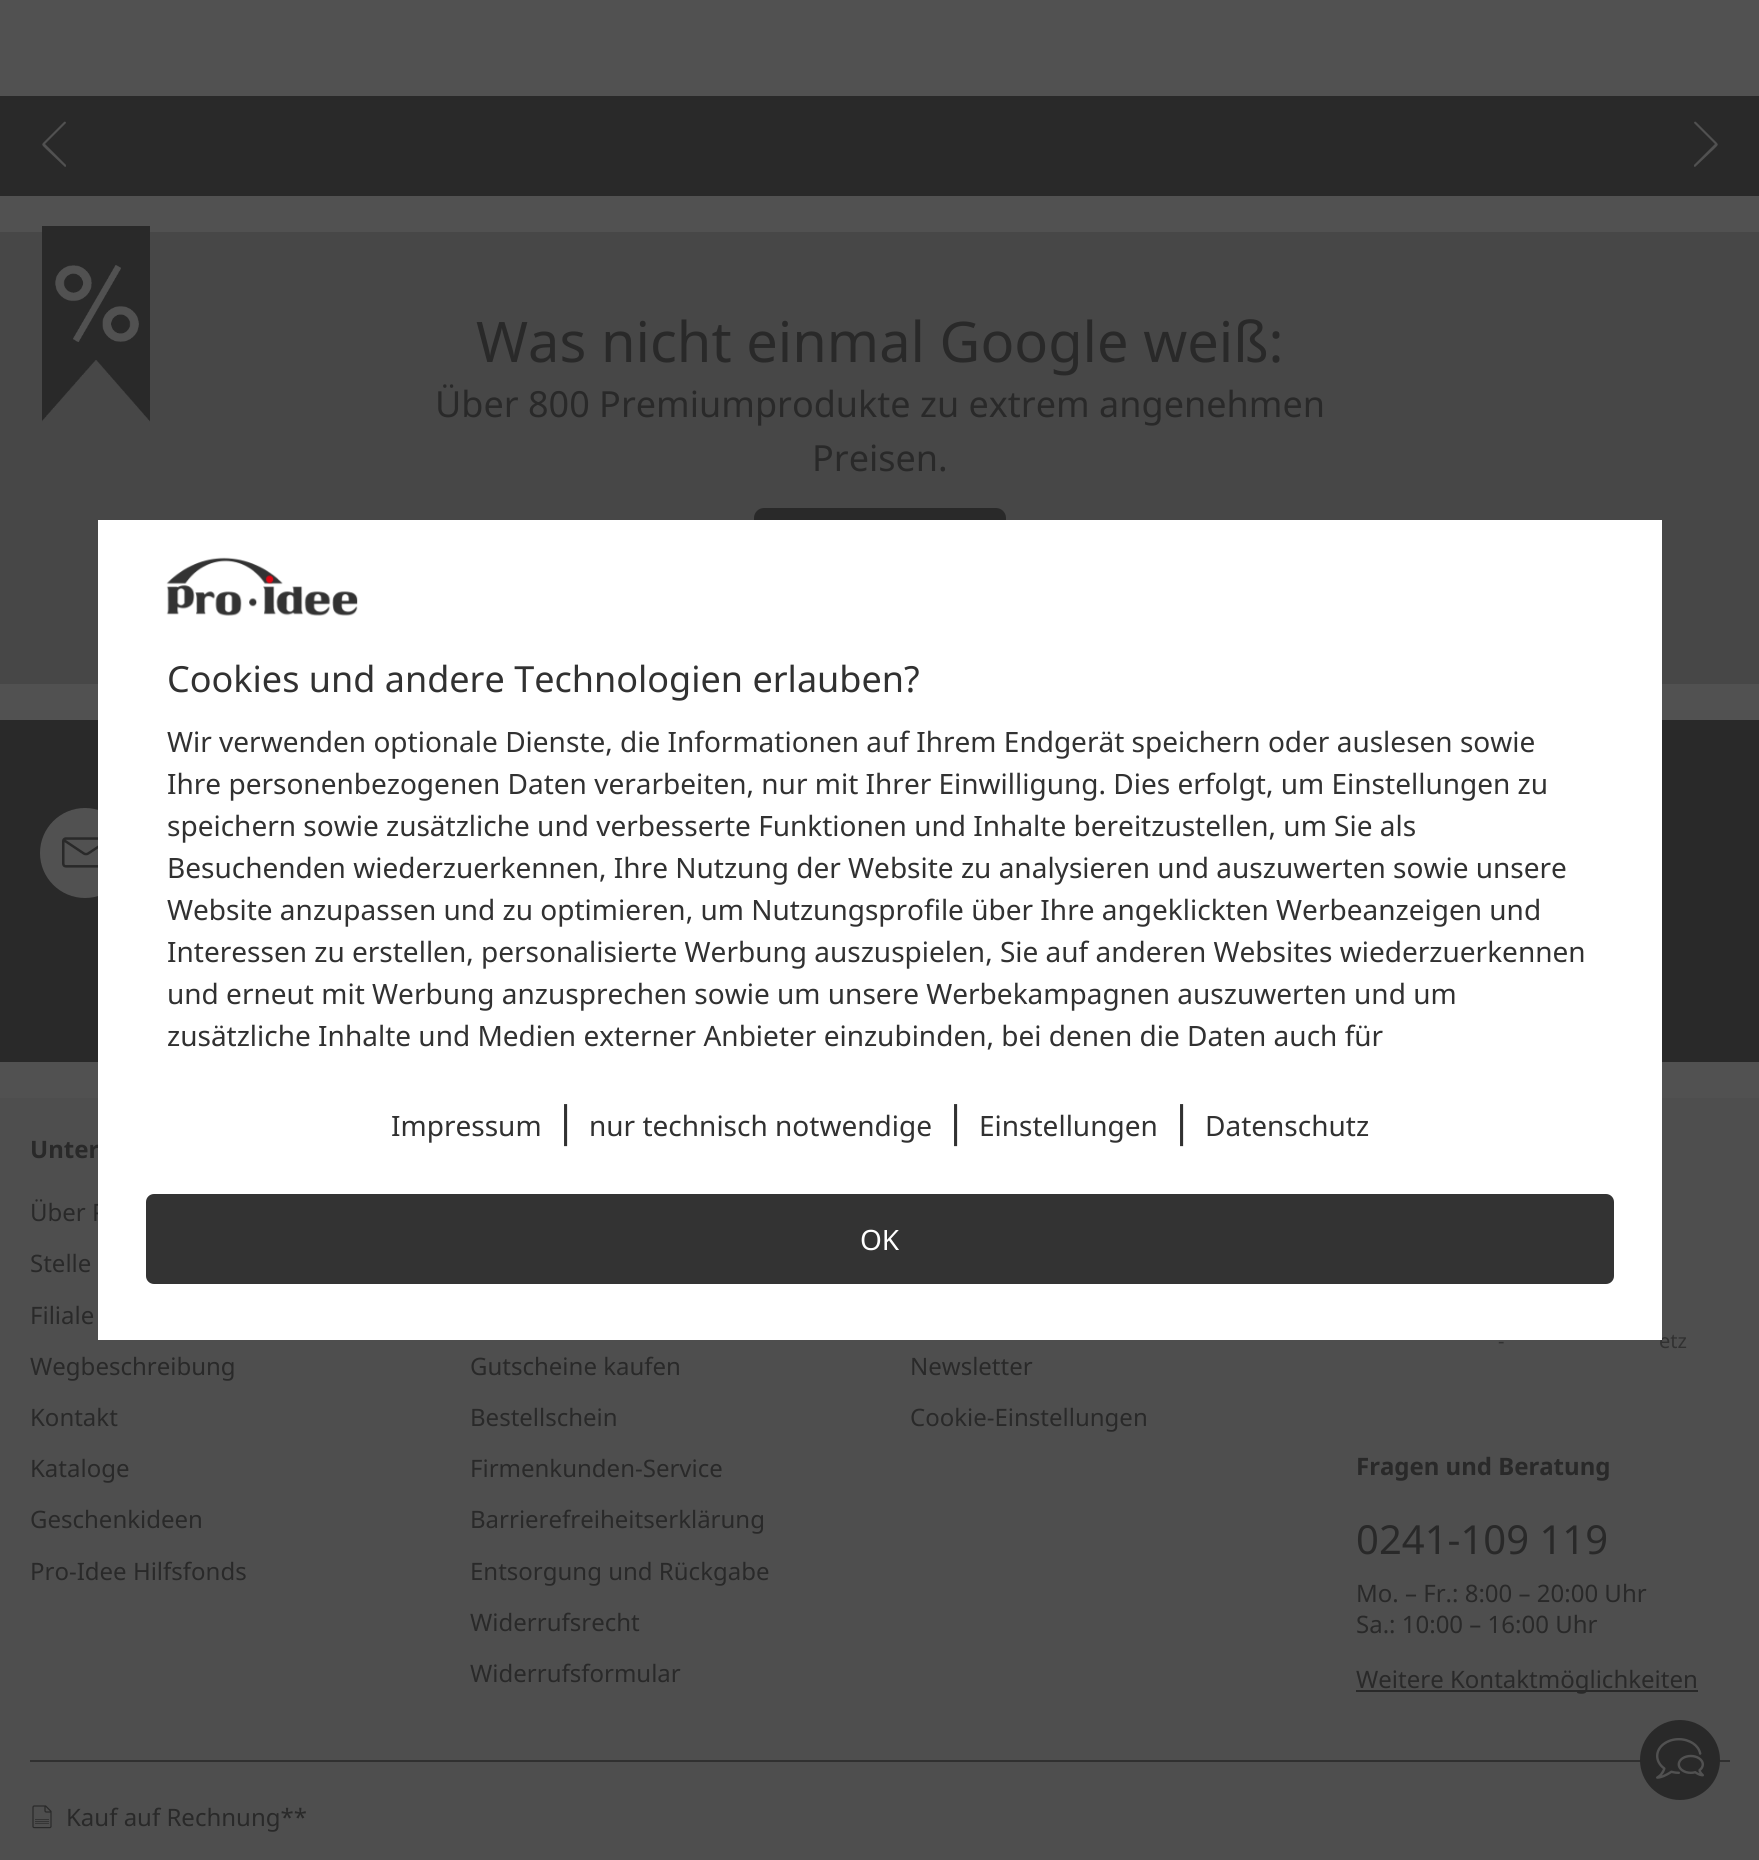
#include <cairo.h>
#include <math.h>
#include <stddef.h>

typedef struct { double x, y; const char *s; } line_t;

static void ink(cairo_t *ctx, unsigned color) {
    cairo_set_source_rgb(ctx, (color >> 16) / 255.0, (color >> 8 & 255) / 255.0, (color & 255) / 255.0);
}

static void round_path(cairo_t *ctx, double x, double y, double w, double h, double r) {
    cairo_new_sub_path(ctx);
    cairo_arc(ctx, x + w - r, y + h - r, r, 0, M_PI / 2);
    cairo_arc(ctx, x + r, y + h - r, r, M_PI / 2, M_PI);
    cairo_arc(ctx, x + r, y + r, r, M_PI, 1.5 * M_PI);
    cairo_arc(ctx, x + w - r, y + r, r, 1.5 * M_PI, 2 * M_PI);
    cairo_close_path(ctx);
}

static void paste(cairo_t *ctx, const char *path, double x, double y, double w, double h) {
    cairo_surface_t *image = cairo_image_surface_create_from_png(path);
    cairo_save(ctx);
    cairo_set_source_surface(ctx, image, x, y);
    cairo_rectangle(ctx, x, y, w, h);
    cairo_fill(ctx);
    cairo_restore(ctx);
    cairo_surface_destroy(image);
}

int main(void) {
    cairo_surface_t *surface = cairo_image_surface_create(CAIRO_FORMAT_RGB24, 1759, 1860);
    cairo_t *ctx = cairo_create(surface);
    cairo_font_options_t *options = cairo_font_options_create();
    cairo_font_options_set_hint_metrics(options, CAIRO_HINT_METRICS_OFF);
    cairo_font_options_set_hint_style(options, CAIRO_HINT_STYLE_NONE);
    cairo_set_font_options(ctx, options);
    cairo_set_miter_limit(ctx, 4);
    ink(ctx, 0x515151);
    cairo_paint(ctx);
    ink(ctx, 0x292929);
    cairo_rectangle(ctx, 0, 96, 1759, 100);
    cairo_fill(ctx);
    ink(ctx, 0x515151);
    cairo_new_path(ctx);
    cairo_move_to(ctx, 65, 167);
    cairo_curve_to(ctx, 66, 167, 66, 166, 66, 165);
    cairo_line_to(ctx, 45, 144);
    cairo_line_to(ctx, 66, 123);
    cairo_curve_to(ctx, 66, 122, 65, 121, 64, 122);
    cairo_line_to(ctx, 46, 140);
    cairo_curve_to(ctx, 41, 145, 41, 144, 46, 149);
    cairo_close_path(ctx);
    cairo_fill(ctx);
    cairo_new_path(ctx);
    cairo_move_to(ctx, 1695, 167);
    cairo_curve_to(ctx, 1694, 167, 1694, 166, 1694, 165);
    cairo_line_to(ctx, 1715, 144);
    cairo_line_to(ctx, 1694, 123);
    cairo_curve_to(ctx, 1694, 122, 1695, 121, 1696, 122);
    cairo_line_to(ctx, 1714, 140);
    cairo_curve_to(ctx, 1719, 145, 1719, 144, 1714, 149);
    cairo_close_path(ctx);
    cairo_fill(ctx);
    ink(ctx, 0x474747);
    cairo_rectangle(ctx, 0, 232, 1759, 452);
    cairo_fill(ctx);
    paste(ctx, "media/1.png", 42, 226, 108, 196);
    cairo_select_font_face(ctx, "Noto Sans", CAIRO_FONT_SLANT_NORMAL, CAIRO_FONT_WEIGHT_NORMAL);
    cairo_set_font_size(ctx, 56);
    ink(ctx, 0x292929);
    cairo_move_to(ctx, 476, 362);
    cairo_show_text(ctx, "Was nicht einmal Google weiß:");
    cairo_set_font_size(ctx, 36);
    cairo_move_to(ctx, 435, 417);
    cairo_show_text(ctx, "Über 800 Premiumprodukte zu extrem angenehmen");
    cairo_move_to(ctx, 812, 471);
    cairo_show_text(ctx, "Preisen.");
    round_path(ctx, 754, 508, 252, 104, 10);
    cairo_fill(ctx);
    cairo_rectangle(ctx, 0, 720, 1759, 342);
    cairo_fill(ctx);
    ink(ctx, 0x515151);
    cairo_arc(ctx, 85, 853, 45, 0, 2 * M_PI);
    cairo_fill(ctx);
    paste(ctx, "media/2.png", 62, 837, 36, 31);
    ink(ctx, 0x4E4E4E);
    cairo_rectangle(ctx, 0, 1098, 1759, 762);
    cairo_fill(ctx);
    cairo_select_font_face(ctx, "Noto Sans", CAIRO_FONT_SLANT_NORMAL, CAIRO_FONT_WEIGHT_BOLD);
    cairo_set_font_size(ctx, 24);
    ink(ctx, 0x292929);
    cairo_move_to(ctx, 30, 1158);
    cairo_show_text(ctx, "Unter");
    cairo_select_font_face(ctx, "Noto Sans", CAIRO_FONT_SLANT_NORMAL, CAIRO_FONT_WEIGHT_NORMAL);
    {
        static const line_t items[] = {
            {30, 1221, "Über P"},
            {30, 1272, "Stelle"},
            {30, 1324, "Filiale"},
            {30, 1375, "Wegbeschreibung"},
            {30, 1426, "Kontakt"},
            {30, 1477, "Kataloge"},
            {30, 1528, "Geschenkideen"},
            {30, 1580, "Pro-Idee Hilfsfonds"},
            {470, 1375, "Gutscheine kaufen"},
            {470, 1426, "Bestellschein"},
            {470, 1477, "Firmenkunden-Service"},
            {470, 1528, "Barrierefreiheitserklärung"},
            {470, 1580, "Entsorgung und Rückgabe"},
            {470, 1631, "Widerrufsrecht"},
            {470, 1682, "Widerrufsformular"},
            {910, 1375, "Newsletter"},
            {910, 1426, "Cookie-Einstellungen"},
        };
        for (size_t i = 0; i < sizeof items / sizeof *items; i++) {
            cairo_move_to(ctx, items[i].x, items[i].y);
            cairo_show_text(ctx, items[i].s);
        }
    }
    cairo_set_font_size(ctx, 20);
    ink(ctx, 0x313131);
    cairo_move_to(ctx, 1498, 1348);
    cairo_show_text(ctx, "-");
    cairo_move_to(ctx, 1659, 1348);
    cairo_show_text(ctx, "etz");
    cairo_select_font_face(ctx, "Noto Sans", CAIRO_FONT_SLANT_NORMAL, CAIRO_FONT_WEIGHT_BOLD);
    cairo_set_font_size(ctx, 24);
    ink(ctx, 0x292929);
    cairo_move_to(ctx, 1356, 1475);
    cairo_show_text(ctx, "Fragen und Beratung");
    cairo_select_font_face(ctx, "Noto Sans", CAIRO_FONT_SLANT_NORMAL, CAIRO_FONT_WEIGHT_NORMAL);
    cairo_set_font_size(ctx, 40);
    cairo_move_to(ctx, 1356, 1554);
    cairo_show_text(ctx, "0241-109 119");
    cairo_set_font_size(ctx, 24);
    cairo_move_to(ctx, 1356, 1602);
    cairo_show_text(ctx, "Mo. – Fr.: 8:00 – 20:00 Uhr");
    cairo_move_to(ctx, 1356, 1633);
    cairo_show_text(ctx, "Sa.: 10:00 – 16:00 Uhr");
    cairo_rectangle(ctx, 1356, 1690, 342, 2);
    cairo_fill(ctx);
    cairo_move_to(ctx, 1356, 1688);
    cairo_show_text(ctx, "Weitere Kontaktmöglichkeiten");
    ink(ctx, 0x303030);
    cairo_rectangle(ctx, 30, 1760, 1700, 2);
    cairo_fill(ctx);
    cairo_select_font_face(ctx, "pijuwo", CAIRO_FONT_SLANT_NORMAL, CAIRO_FONT_WEIGHT_NORMAL);
    ink(ctx, 0x292929);
    cairo_move_to(ctx, 30, 1827);
    cairo_show_text(ctx, "?");
    cairo_select_font_face(ctx, "Noto Sans", CAIRO_FONT_SLANT_NORMAL, CAIRO_FONT_WEIGHT_NORMAL);
    cairo_move_to(ctx, 66, 1826);
    cairo_show_text(ctx, "Kauf auf Rechnung**");
    cairo_new_path(ctx);
    cairo_arc(ctx, 1680, 1760, 40, 0, 2 * M_PI);
    cairo_fill(ctx);
    cairo_select_font_face(ctx, "pijuwo", CAIRO_FONT_SLANT_NORMAL, CAIRO_FONT_WEIGHT_NORMAL);
    cairo_set_font_size(ctx, 48);
    ink(ctx, 0x515151);
    cairo_move_to(ctx, 1656, 1780);
    cairo_show_text(ctx, "3");
    ink(ctx, 0xFFFFFF);
    cairo_rectangle(ctx, 98, 520, 1564, 820);
    cairo_fill(ctx);
    paste(ctx, "media/3.png", 166, 557, 192, 59);
    cairo_select_font_face(ctx, "Noto Sans", CAIRO_FONT_SLANT_NORMAL, CAIRO_FONT_WEIGHT_NORMAL);
    cairo_set_font_size(ctx, 36);
    ink(ctx, 0x313131);
    cairo_move_to(ctx, 167, 692);
    cairo_show_text(ctx, "Cookies und andere Technologien erlauben?");
    cairo_set_font_size(ctx, 28);
    {
        static const line_t items[] = {
            {167, 752, "Wir verwenden optionale Dienste, die Informationen auf Ihrem Endgerät speichern oder auslesen sowie"},
            {167, 794, "Ihre personenbezogenen Daten verarbeiten, nur mit Ihrer Einwilligung. Dies erfolgt, um Einstellungen zu"},
            {167, 836, "speichern sowie zusätzliche und verbesserte Funktionen und Inhalte bereitzustellen, um Sie als"},
            {167, 878, "Besuchenden wiederzuerkennen, Ihre Nutzung der Website zu analysieren und auszuwerten sowie unsere"},
            {167, 920, "Website anzupassen und zu optimieren, um Nutzungsprofile über Ihre angeklickten Werbeanzeigen und"},
            {167, 962, "Interessen zu erstellen, personalisierte Werbung auszuspielen, Sie auf anderen Websites wiederzuerkennen"},
            {167, 1004, "und erneut mit Werbung anzusprechen sowie um unsere Werbekampagnen auszuwerten und um"},
            {167, 1046, "zusätzliche Inhalte und Medien externer Anbieter einzubinden, bei denen die Daten auch für"},
            {391, 1136, "Impressum"},
        };
        for (size_t i = 0; i < sizeof items / sizeof *items; i++) {
            cairo_move_to(ctx, items[i].x, items[i].y);
            cairo_show_text(ctx, items[i].s);
        }
    }
    cairo_set_font_size(ctx, 42);
    cairo_move_to(ctx, 554, 1136);
    cairo_show_text(ctx, "|");
    cairo_set_font_size(ctx, 28);
    cairo_move_to(ctx, 589, 1136);
    cairo_show_text(ctx, "nur technisch notwendige");
    cairo_set_font_size(ctx, 42);
    cairo_move_to(ctx, 944, 1136);
    cairo_show_text(ctx, "|");
    cairo_set_font_size(ctx, 28);
    cairo_move_to(ctx, 979, 1136);
    cairo_show_text(ctx, "Einstellungen");
    cairo_set_font_size(ctx, 42);
    cairo_move_to(ctx, 1170, 1136);
    cairo_show_text(ctx, "|");
    cairo_set_font_size(ctx, 28);
    cairo_move_to(ctx, 1205, 1136);
    cairo_show_text(ctx, "Datenschutz");
    ink(ctx, 0x333333);
    round_path(ctx, 148, 1196, 1464, 86, 6);
    cairo_fill_preserve(ctx);
    cairo_set_line_width(ctx, 4);
    cairo_stroke(ctx);
    ink(ctx, 0xFFFFFF);
    cairo_move_to(ctx, 860, 1250);
    cairo_show_text(ctx, "OK");
    cairo_surface_write_to_png(surface, "image.png");
    cairo_font_options_destroy(options);
    cairo_destroy(ctx);
    cairo_surface_destroy(surface);
    return 0;
}
